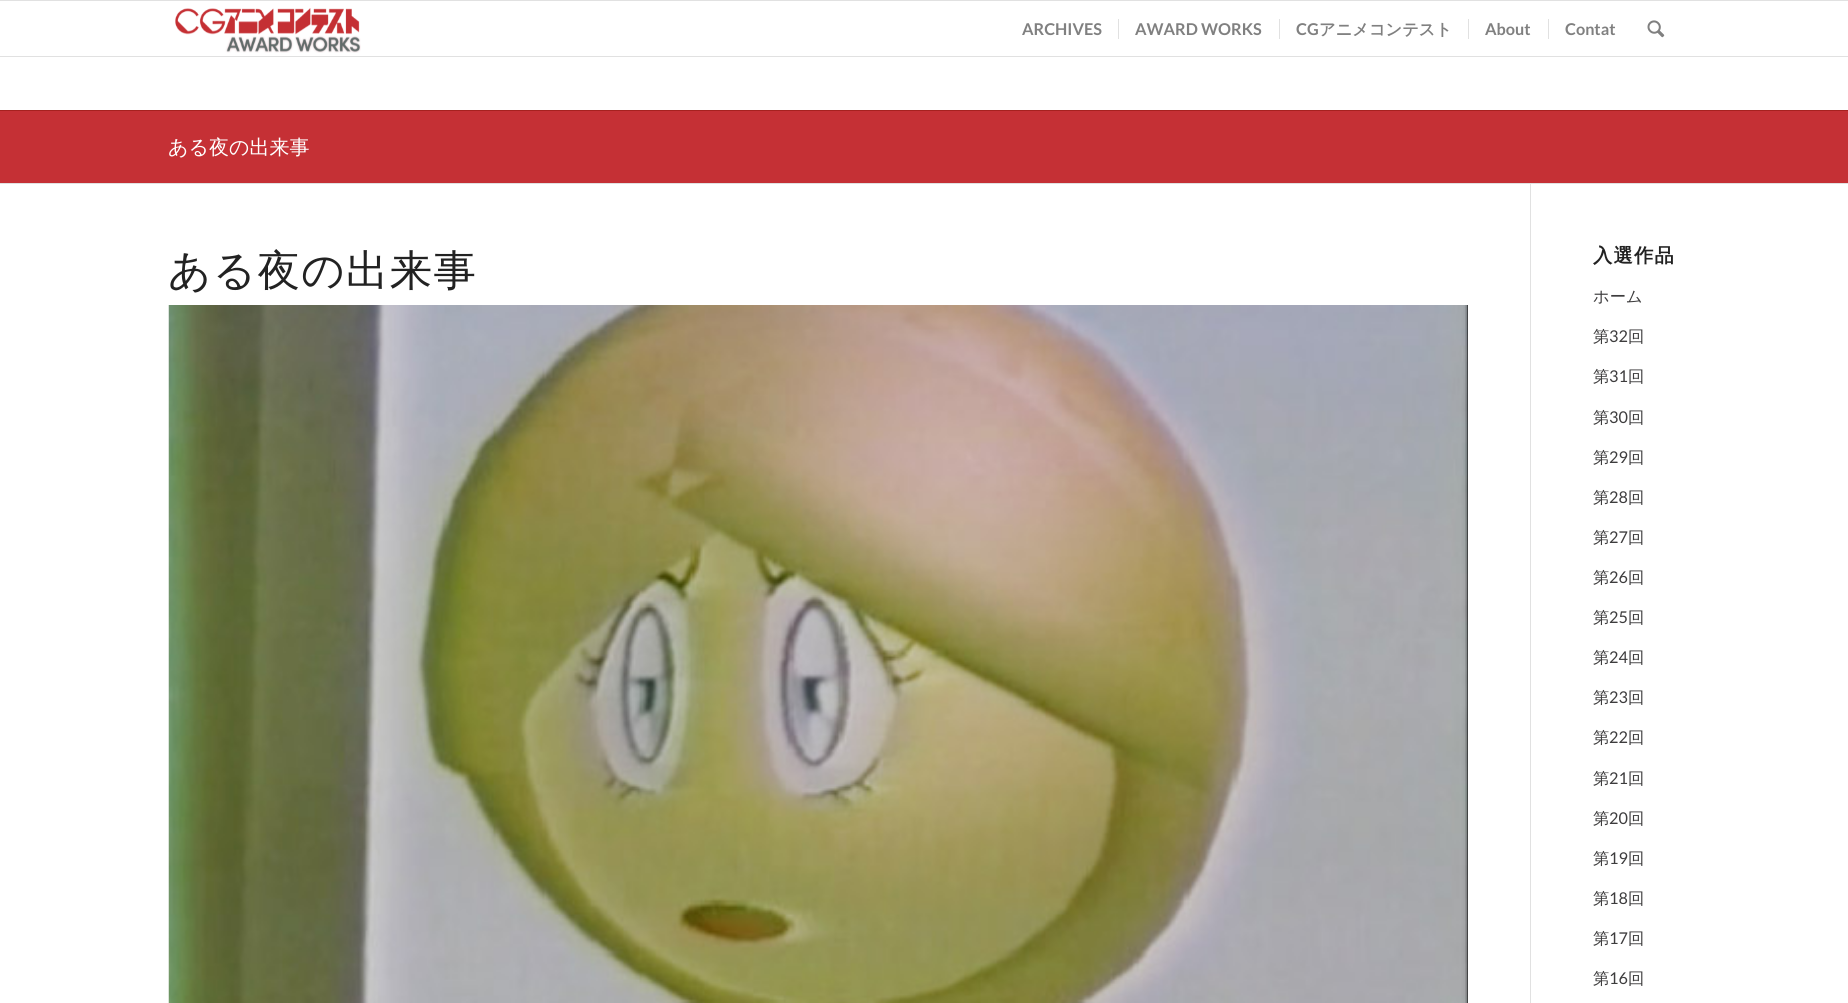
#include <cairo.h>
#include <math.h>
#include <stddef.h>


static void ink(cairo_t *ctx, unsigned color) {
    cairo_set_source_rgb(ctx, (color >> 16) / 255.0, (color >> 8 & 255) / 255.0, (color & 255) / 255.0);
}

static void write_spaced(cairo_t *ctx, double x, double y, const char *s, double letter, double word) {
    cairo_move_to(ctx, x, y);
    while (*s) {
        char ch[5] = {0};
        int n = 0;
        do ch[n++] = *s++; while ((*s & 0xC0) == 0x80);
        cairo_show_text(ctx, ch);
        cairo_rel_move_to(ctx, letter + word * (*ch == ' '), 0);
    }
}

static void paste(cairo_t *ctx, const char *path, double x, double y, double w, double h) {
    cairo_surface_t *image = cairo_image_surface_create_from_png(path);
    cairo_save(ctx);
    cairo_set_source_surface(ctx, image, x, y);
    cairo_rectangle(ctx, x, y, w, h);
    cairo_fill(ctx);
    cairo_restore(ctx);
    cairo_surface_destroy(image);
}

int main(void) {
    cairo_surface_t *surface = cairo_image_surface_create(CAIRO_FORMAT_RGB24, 1848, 1003);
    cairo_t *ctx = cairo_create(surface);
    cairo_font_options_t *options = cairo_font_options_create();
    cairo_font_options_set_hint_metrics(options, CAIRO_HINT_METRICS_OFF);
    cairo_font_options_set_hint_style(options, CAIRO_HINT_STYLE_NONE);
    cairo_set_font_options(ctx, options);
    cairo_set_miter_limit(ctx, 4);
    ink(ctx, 0xFFFFFF);
    cairo_paint(ctx);
    ink(ctx, 0xE1E1E1);
    cairo_rectangle(ctx, 0, 0, 1848, 1);
    cairo_fill(ctx);
    cairo_rectangle(ctx, 0, 56, 1848, 1);
    cairo_fill(ctx);
    paste(ctx, "media/1.png", 175, 8, 186, 45);
    cairo_select_font_face(ctx, "Lato", CAIRO_FONT_SLANT_NORMAL, CAIRO_FONT_WEIGHT_BOLD);
    cairo_set_font_size(ctx, 16.25);
    ink(ctx, 0x808080);
    cairo_move_to(ctx, 1022, 35);
    cairo_show_text(ctx, "ARCHIVES");
    cairo_move_to(ctx, 1135, 35);
    cairo_show_text(ctx, "AWARD WORKS");
    ink(ctx, 0xE1E1E1);
    cairo_rectangle(ctx, 1118, 19, 1, 20);
    cairo_fill(ctx);
    ink(ctx, 0x808080);
    cairo_move_to(ctx, 1296, 35);
    cairo_show_text(ctx, "CG");
    ink(ctx, 0xE1E1E1);
    cairo_rectangle(ctx, 1279, 19, 1, 20);
    cairo_fill(ctx);
    cairo_select_font_face(ctx, "WenQuanYi Zen Hei", CAIRO_FONT_SLANT_NORMAL, CAIRO_FONT_WEIGHT_BOLD);
    ink(ctx, 0x808080);
    cairo_move_to(ctx, 1319, 35);
    cairo_show_text(ctx, "アニメコンテスト");
    cairo_select_font_face(ctx, "Lato", CAIRO_FONT_SLANT_NORMAL, CAIRO_FONT_WEIGHT_BOLD);
    cairo_move_to(ctx, 1485, 35);
    cairo_show_text(ctx, "About");
    ink(ctx, 0xE1E1E1);
    cairo_rectangle(ctx, 1468, 19, 1, 20);
    cairo_fill(ctx);
    ink(ctx, 0x808080);
    cairo_move_to(ctx, 1565, 35);
    cairo_show_text(ctx, "Contat");
    ink(ctx, 0xE1E1E1);
    cairo_rectangle(ctx, 1548, 19, 1, 20);
    cairo_fill(ctx);
    paste(ctx, "media/2.png", 1647, 20, 18, 18);
    ink(ctx, 0xC53035);
    cairo_rectangle(ctx, 0, 111, 1848, 72);
    cairo_fill(ctx);
    ink(ctx, 0xA6211F);
    cairo_rectangle(ctx, 0, 110, 1848, 1);
    cairo_fill(ctx);
    cairo_select_font_face(ctx, "WenQuanYi Zen Hei Medium", CAIRO_FONT_SLANT_NORMAL, CAIRO_FONT_WEIGHT_NORMAL);
    cairo_set_font_size(ctx, 20);
    ink(ctx, 0xFFFFFF);
    cairo_move_to(ctx, 168, 154);
    cairo_show_text(ctx, "ある夜の出来事");
    ink(ctx, 0xE1E1E1);
    cairo_rectangle(ctx, 0, 183, 1848, 1);
    cairo_fill(ctx);
    cairo_rectangle(ctx, 1530, 184, 1, 819);
    cairo_fill(ctx);
    cairo_set_font_size(ctx, 42.5);
    ink(ctx, 0x222222);
    write_spaced(ctx, 168, 285, "ある夜の出来事", 1.25, 0);
    ink(ctx, 0x000000);
    cairo_rectangle(ctx, 1467, 305, 1, 698);
    cairo_fill(ctx);
    paste(ctx, "media/3.png", 168, 305, 1300, 698);
    cairo_select_font_face(ctx, "WenQuanYi Zen Hei", CAIRO_FONT_SLANT_NORMAL, CAIRO_FONT_WEIGHT_BOLD);
    cairo_set_font_size(ctx, 19.25);
    ink(ctx, 0x222222);
    write_spaced(ctx, 1593, 262, "入選作品", 1.25, 0);
    cairo_select_font_face(ctx, "WenQuanYi Zen Hei Medium", CAIRO_FONT_SLANT_NORMAL, CAIRO_FONT_WEIGHT_NORMAL);
    cairo_set_font_size(ctx, 16.25);
    ink(ctx, 0x3D3C3D);
    cairo_move_to(ctx, 1593, 302);
    cairo_show_text(ctx, "ホーム");
    cairo_move_to(ctx, 1593, 342);
    cairo_show_text(ctx, "第");
    cairo_select_font_face(ctx, "Lato", CAIRO_FONT_SLANT_NORMAL, CAIRO_FONT_WEIGHT_NORMAL);
    cairo_move_to(ctx, 1609, 342);
    cairo_show_text(ctx, "32");
    cairo_select_font_face(ctx, "WenQuanYi Zen Hei Medium", CAIRO_FONT_SLANT_NORMAL, CAIRO_FONT_WEIGHT_NORMAL);
    cairo_move_to(ctx, 1628, 342);
    cairo_show_text(ctx, "回");
    cairo_move_to(ctx, 1593, 382);
    cairo_show_text(ctx, "第");
    cairo_select_font_face(ctx, "Lato", CAIRO_FONT_SLANT_NORMAL, CAIRO_FONT_WEIGHT_NORMAL);
    cairo_move_to(ctx, 1609, 382);
    cairo_show_text(ctx, "31");
    cairo_select_font_face(ctx, "WenQuanYi Zen Hei Medium", CAIRO_FONT_SLANT_NORMAL, CAIRO_FONT_WEIGHT_NORMAL);
    cairo_move_to(ctx, 1628, 382);
    cairo_show_text(ctx, "回");
    cairo_move_to(ctx, 1593, 423);
    cairo_show_text(ctx, "第");
    cairo_select_font_face(ctx, "Lato", CAIRO_FONT_SLANT_NORMAL, CAIRO_FONT_WEIGHT_NORMAL);
    cairo_move_to(ctx, 1609, 423);
    cairo_show_text(ctx, "30");
    cairo_select_font_face(ctx, "WenQuanYi Zen Hei Medium", CAIRO_FONT_SLANT_NORMAL, CAIRO_FONT_WEIGHT_NORMAL);
    cairo_move_to(ctx, 1628, 423);
    cairo_show_text(ctx, "回");
    cairo_move_to(ctx, 1593, 463);
    cairo_show_text(ctx, "第");
    cairo_select_font_face(ctx, "Lato", CAIRO_FONT_SLANT_NORMAL, CAIRO_FONT_WEIGHT_NORMAL);
    cairo_move_to(ctx, 1609, 463);
    cairo_show_text(ctx, "29");
    cairo_select_font_face(ctx, "WenQuanYi Zen Hei Medium", CAIRO_FONT_SLANT_NORMAL, CAIRO_FONT_WEIGHT_NORMAL);
    cairo_move_to(ctx, 1628, 463);
    cairo_show_text(ctx, "回");
    cairo_move_to(ctx, 1593, 503);
    cairo_show_text(ctx, "第");
    cairo_select_font_face(ctx, "Lato", CAIRO_FONT_SLANT_NORMAL, CAIRO_FONT_WEIGHT_NORMAL);
    cairo_move_to(ctx, 1609, 503);
    cairo_show_text(ctx, "28");
    cairo_select_font_face(ctx, "WenQuanYi Zen Hei Medium", CAIRO_FONT_SLANT_NORMAL, CAIRO_FONT_WEIGHT_NORMAL);
    cairo_move_to(ctx, 1628, 503);
    cairo_show_text(ctx, "回");
    cairo_move_to(ctx, 1593, 543);
    cairo_show_text(ctx, "第");
    cairo_select_font_face(ctx, "Lato", CAIRO_FONT_SLANT_NORMAL, CAIRO_FONT_WEIGHT_NORMAL);
    cairo_move_to(ctx, 1609, 543);
    cairo_show_text(ctx, "27");
    cairo_select_font_face(ctx, "WenQuanYi Zen Hei Medium", CAIRO_FONT_SLANT_NORMAL, CAIRO_FONT_WEIGHT_NORMAL);
    cairo_move_to(ctx, 1628, 543);
    cairo_show_text(ctx, "回");
    cairo_move_to(ctx, 1593, 583);
    cairo_show_text(ctx, "第");
    cairo_select_font_face(ctx, "Lato", CAIRO_FONT_SLANT_NORMAL, CAIRO_FONT_WEIGHT_NORMAL);
    cairo_move_to(ctx, 1609, 583);
    cairo_show_text(ctx, "26");
    cairo_select_font_face(ctx, "WenQuanYi Zen Hei Medium", CAIRO_FONT_SLANT_NORMAL, CAIRO_FONT_WEIGHT_NORMAL);
    cairo_move_to(ctx, 1628, 583);
    cairo_show_text(ctx, "回");
    cairo_move_to(ctx, 1593, 623);
    cairo_show_text(ctx, "第");
    cairo_select_font_face(ctx, "Lato", CAIRO_FONT_SLANT_NORMAL, CAIRO_FONT_WEIGHT_NORMAL);
    cairo_move_to(ctx, 1609, 623);
    cairo_show_text(ctx, "25");
    cairo_select_font_face(ctx, "WenQuanYi Zen Hei Medium", CAIRO_FONT_SLANT_NORMAL, CAIRO_FONT_WEIGHT_NORMAL);
    cairo_move_to(ctx, 1628, 623);
    cairo_show_text(ctx, "回");
    cairo_move_to(ctx, 1593, 663);
    cairo_show_text(ctx, "第");
    cairo_select_font_face(ctx, "Lato", CAIRO_FONT_SLANT_NORMAL, CAIRO_FONT_WEIGHT_NORMAL);
    cairo_move_to(ctx, 1609, 663);
    cairo_show_text(ctx, "24");
    cairo_select_font_face(ctx, "WenQuanYi Zen Hei Medium", CAIRO_FONT_SLANT_NORMAL, CAIRO_FONT_WEIGHT_NORMAL);
    cairo_move_to(ctx, 1628, 663);
    cairo_show_text(ctx, "回");
    cairo_move_to(ctx, 1593, 703);
    cairo_show_text(ctx, "第");
    cairo_select_font_face(ctx, "Lato", CAIRO_FONT_SLANT_NORMAL, CAIRO_FONT_WEIGHT_NORMAL);
    cairo_move_to(ctx, 1609, 703);
    cairo_show_text(ctx, "23");
    cairo_select_font_face(ctx, "WenQuanYi Zen Hei Medium", CAIRO_FONT_SLANT_NORMAL, CAIRO_FONT_WEIGHT_NORMAL);
    cairo_move_to(ctx, 1628, 703);
    cairo_show_text(ctx, "回");
    cairo_move_to(ctx, 1593, 743);
    cairo_show_text(ctx, "第");
    cairo_select_font_face(ctx, "Lato", CAIRO_FONT_SLANT_NORMAL, CAIRO_FONT_WEIGHT_NORMAL);
    cairo_move_to(ctx, 1609, 743);
    cairo_show_text(ctx, "22");
    cairo_select_font_face(ctx, "WenQuanYi Zen Hei Medium", CAIRO_FONT_SLANT_NORMAL, CAIRO_FONT_WEIGHT_NORMAL);
    cairo_move_to(ctx, 1628, 743);
    cairo_show_text(ctx, "回");
    cairo_move_to(ctx, 1593, 784);
    cairo_show_text(ctx, "第");
    cairo_select_font_face(ctx, "Lato", CAIRO_FONT_SLANT_NORMAL, CAIRO_FONT_WEIGHT_NORMAL);
    cairo_move_to(ctx, 1609, 784);
    cairo_show_text(ctx, "21");
    cairo_select_font_face(ctx, "WenQuanYi Zen Hei Medium", CAIRO_FONT_SLANT_NORMAL, CAIRO_FONT_WEIGHT_NORMAL);
    cairo_move_to(ctx, 1628, 784);
    cairo_show_text(ctx, "回");
    cairo_move_to(ctx, 1593, 824);
    cairo_show_text(ctx, "第");
    cairo_select_font_face(ctx, "Lato", CAIRO_FONT_SLANT_NORMAL, CAIRO_FONT_WEIGHT_NORMAL);
    cairo_move_to(ctx, 1609, 824);
    cairo_show_text(ctx, "20");
    cairo_select_font_face(ctx, "WenQuanYi Zen Hei Medium", CAIRO_FONT_SLANT_NORMAL, CAIRO_FONT_WEIGHT_NORMAL);
    cairo_move_to(ctx, 1628, 824);
    cairo_show_text(ctx, "回");
    cairo_move_to(ctx, 1593, 864);
    cairo_show_text(ctx, "第");
    cairo_select_font_face(ctx, "Lato", CAIRO_FONT_SLANT_NORMAL, CAIRO_FONT_WEIGHT_NORMAL);
    cairo_move_to(ctx, 1609, 864);
    cairo_show_text(ctx, "19");
    cairo_select_font_face(ctx, "WenQuanYi Zen Hei Medium", CAIRO_FONT_SLANT_NORMAL, CAIRO_FONT_WEIGHT_NORMAL);
    cairo_move_to(ctx, 1628, 864);
    cairo_show_text(ctx, "回");
    cairo_move_to(ctx, 1593, 904);
    cairo_show_text(ctx, "第");
    cairo_select_font_face(ctx, "Lato", CAIRO_FONT_SLANT_NORMAL, CAIRO_FONT_WEIGHT_NORMAL);
    cairo_move_to(ctx, 1609, 904);
    cairo_show_text(ctx, "18");
    cairo_select_font_face(ctx, "WenQuanYi Zen Hei Medium", CAIRO_FONT_SLANT_NORMAL, CAIRO_FONT_WEIGHT_NORMAL);
    cairo_move_to(ctx, 1628, 904);
    cairo_show_text(ctx, "回");
    cairo_move_to(ctx, 1593, 944);
    cairo_show_text(ctx, "第");
    cairo_select_font_face(ctx, "Lato", CAIRO_FONT_SLANT_NORMAL, CAIRO_FONT_WEIGHT_NORMAL);
    cairo_move_to(ctx, 1609, 944);
    cairo_show_text(ctx, "17");
    cairo_select_font_face(ctx, "WenQuanYi Zen Hei Medium", CAIRO_FONT_SLANT_NORMAL, CAIRO_FONT_WEIGHT_NORMAL);
    cairo_move_to(ctx, 1628, 944);
    cairo_show_text(ctx, "回");
    cairo_move_to(ctx, 1593, 984);
    cairo_show_text(ctx, "第");
    cairo_select_font_face(ctx, "Lato", CAIRO_FONT_SLANT_NORMAL, CAIRO_FONT_WEIGHT_NORMAL);
    cairo_move_to(ctx, 1609, 984);
    cairo_show_text(ctx, "16");
    cairo_select_font_face(ctx, "WenQuanYi Zen Hei Medium", CAIRO_FONT_SLANT_NORMAL, CAIRO_FONT_WEIGHT_NORMAL);
    cairo_move_to(ctx, 1628, 984);
    cairo_show_text(ctx, "回");
    cairo_surface_write_to_png(surface, "image.png");
    cairo_font_options_destroy(options);
    cairo_destroy(ctx);
    cairo_surface_destroy(surface);
    return 0;
}
